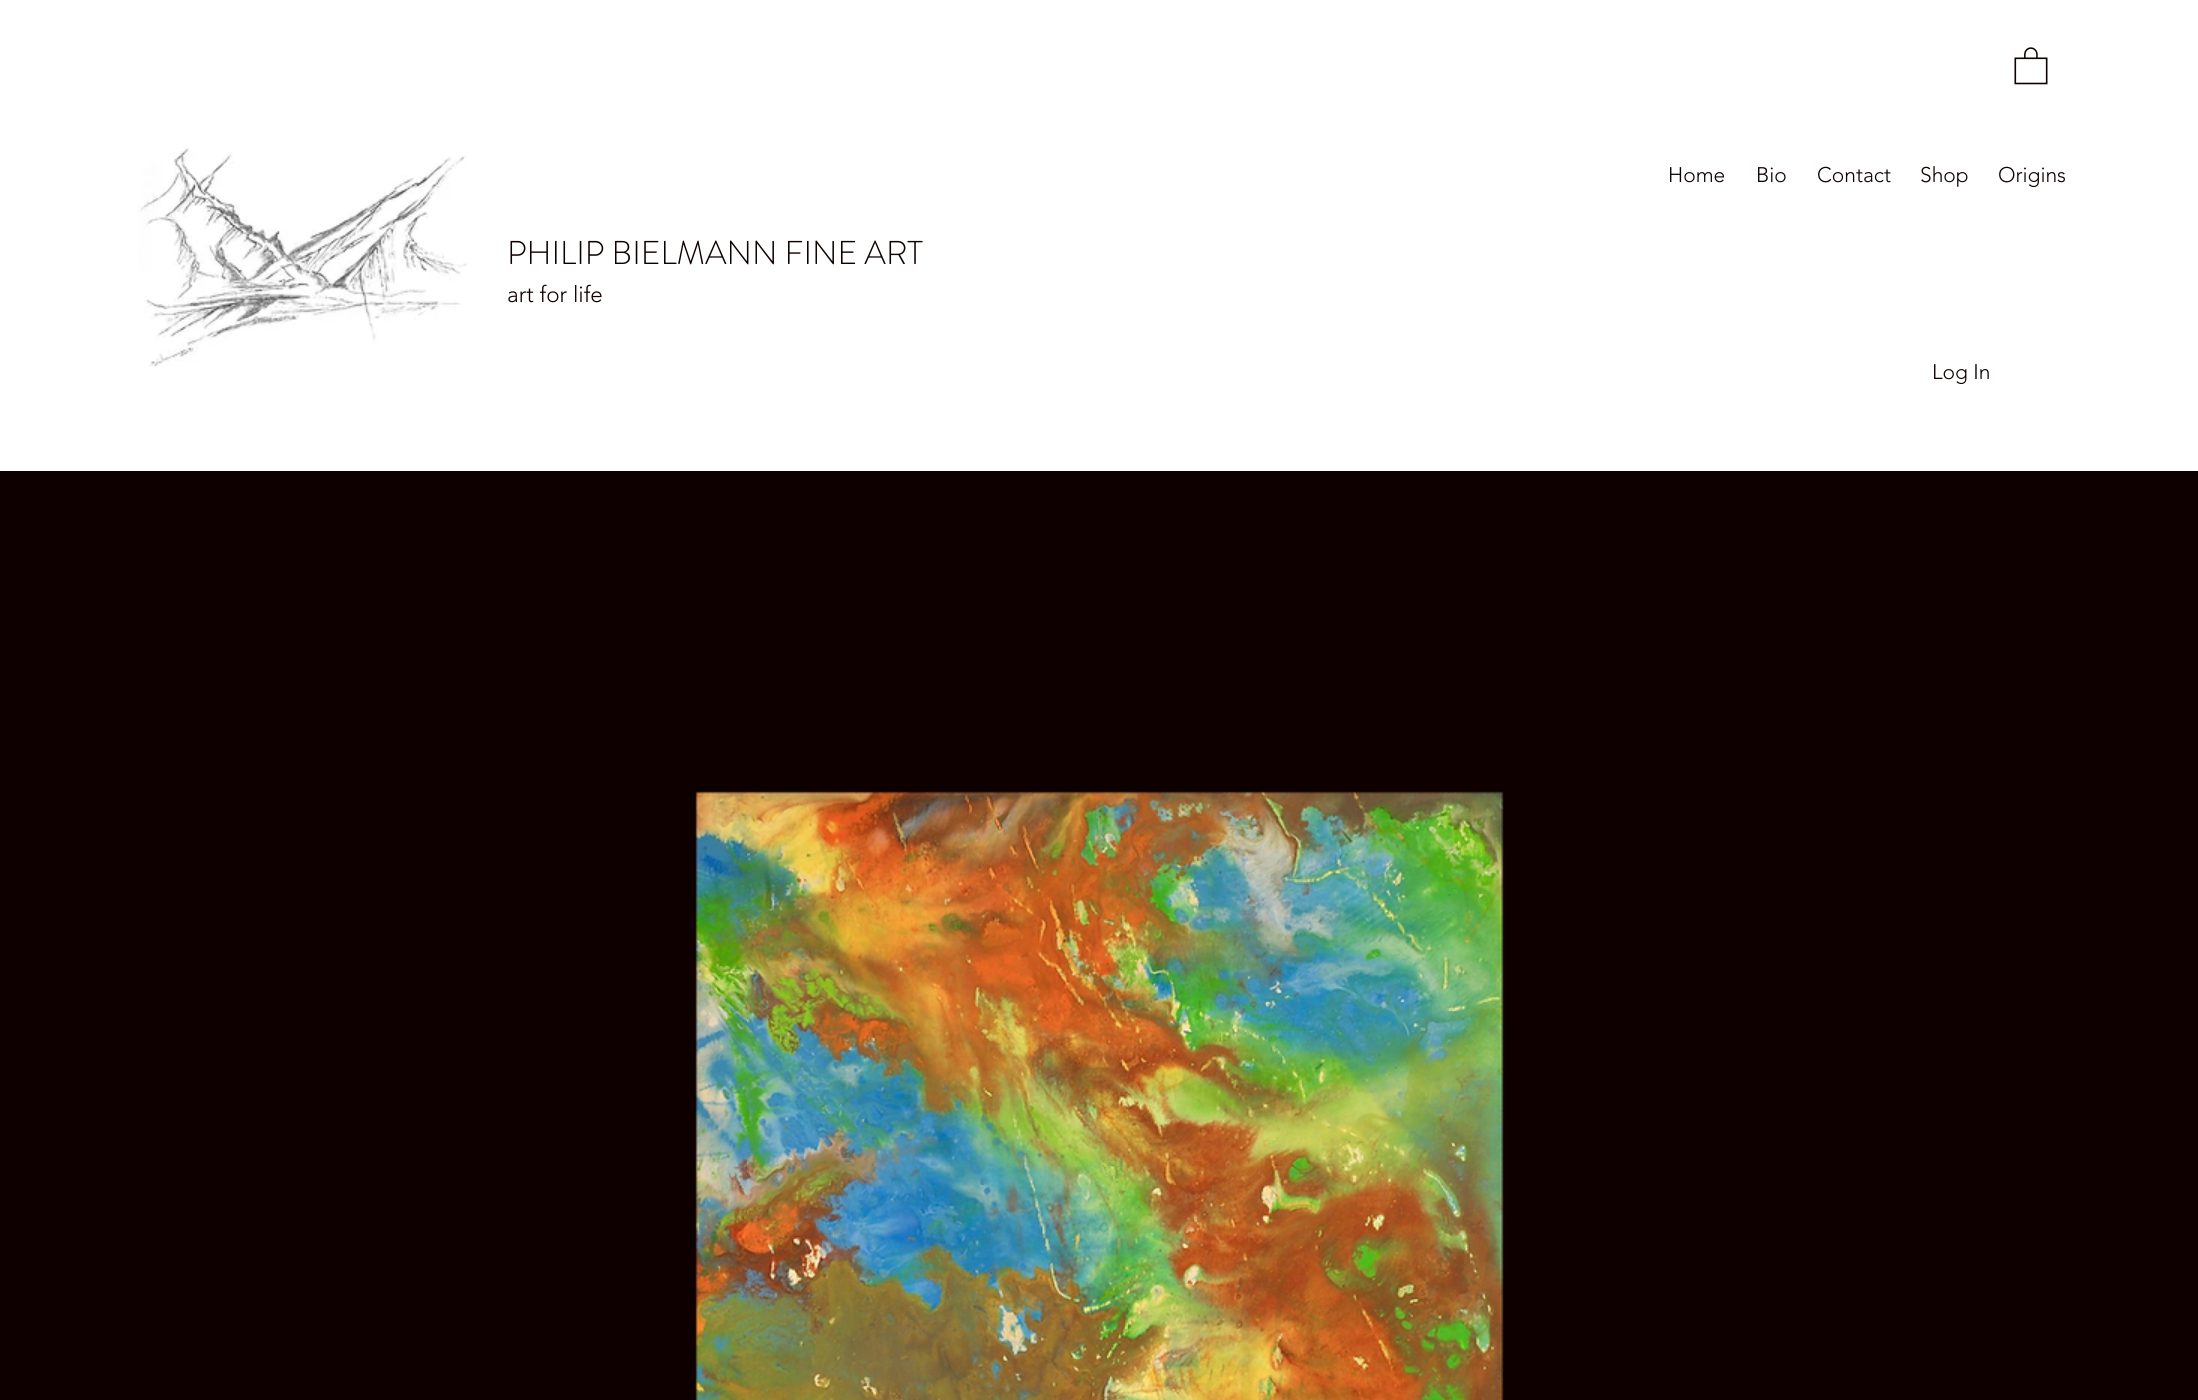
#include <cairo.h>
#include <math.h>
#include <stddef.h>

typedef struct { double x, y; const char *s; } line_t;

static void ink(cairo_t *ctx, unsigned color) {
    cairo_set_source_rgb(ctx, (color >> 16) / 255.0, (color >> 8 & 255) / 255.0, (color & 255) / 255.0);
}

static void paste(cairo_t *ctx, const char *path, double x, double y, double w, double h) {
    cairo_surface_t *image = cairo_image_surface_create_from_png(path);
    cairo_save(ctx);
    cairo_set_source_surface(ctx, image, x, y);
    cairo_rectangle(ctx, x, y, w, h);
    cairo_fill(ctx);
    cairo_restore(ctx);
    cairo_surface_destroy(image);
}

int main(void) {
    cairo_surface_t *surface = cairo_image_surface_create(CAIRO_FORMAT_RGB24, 2198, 1400);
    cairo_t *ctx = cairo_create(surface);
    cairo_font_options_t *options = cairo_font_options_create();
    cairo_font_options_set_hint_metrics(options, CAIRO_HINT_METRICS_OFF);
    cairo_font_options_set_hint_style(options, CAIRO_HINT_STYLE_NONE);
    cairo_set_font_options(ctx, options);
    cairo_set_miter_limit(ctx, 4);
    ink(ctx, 0xFFFFFF);
    cairo_paint(ctx);
    paste(ctx, "media/1.png", 2014, 47, 34, 38);
    paste(ctx, "media/2.png", 138, 146, 330, 221);
    cairo_select_font_face(ctx, "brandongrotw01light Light", CAIRO_FONT_SLANT_NORMAL, CAIRO_FONT_WEIGHT_NORMAL);
    cairo_set_font_size(ctx, 33);
    ink(ctx, 0x0F0000);
    cairo_move_to(ctx, 507, 264);
    cairo_show_text(ctx, "PHILIP BIELMANN FINE ART");
    cairo_select_font_face(ctx, "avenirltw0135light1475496 Light", CAIRO_FONT_SLANT_NORMAL, CAIRO_FONT_WEIGHT_NORMAL);
    cairo_set_font_size(ctx, 22.5);
    cairo_move_to(ctx, 507, 302);
    cairo_show_text(ctx, "art for life");
    cairo_set_font_size(ctx, 21);
    {
        static const line_t items[] = {
            {1668, 182, "Home"},
            {1756, 182, "Bio"},
            {1817, 182, "Contact"},
            {1920, 182, "Shop"},
            {1998, 182, "Origins"},
            {1932, 379, "Log In"},
        };
        for (size_t i = 0; i < sizeof items / sizeof *items; i++) {
            cairo_move_to(ctx, items[i].x, items[i].y);
            cairo_show_text(ctx, items[i].s);
        }
    }
    cairo_rectangle(ctx, 0, 471, 2198, 929);
    cairo_fill(ctx);
    paste(ctx, "media/3.png", 695, 791, 811, 609);
    cairo_surface_write_to_png(surface, "image.png");
    cairo_font_options_destroy(options);
    cairo_destroy(ctx);
    cairo_surface_destroy(surface);
    return 0;
}
